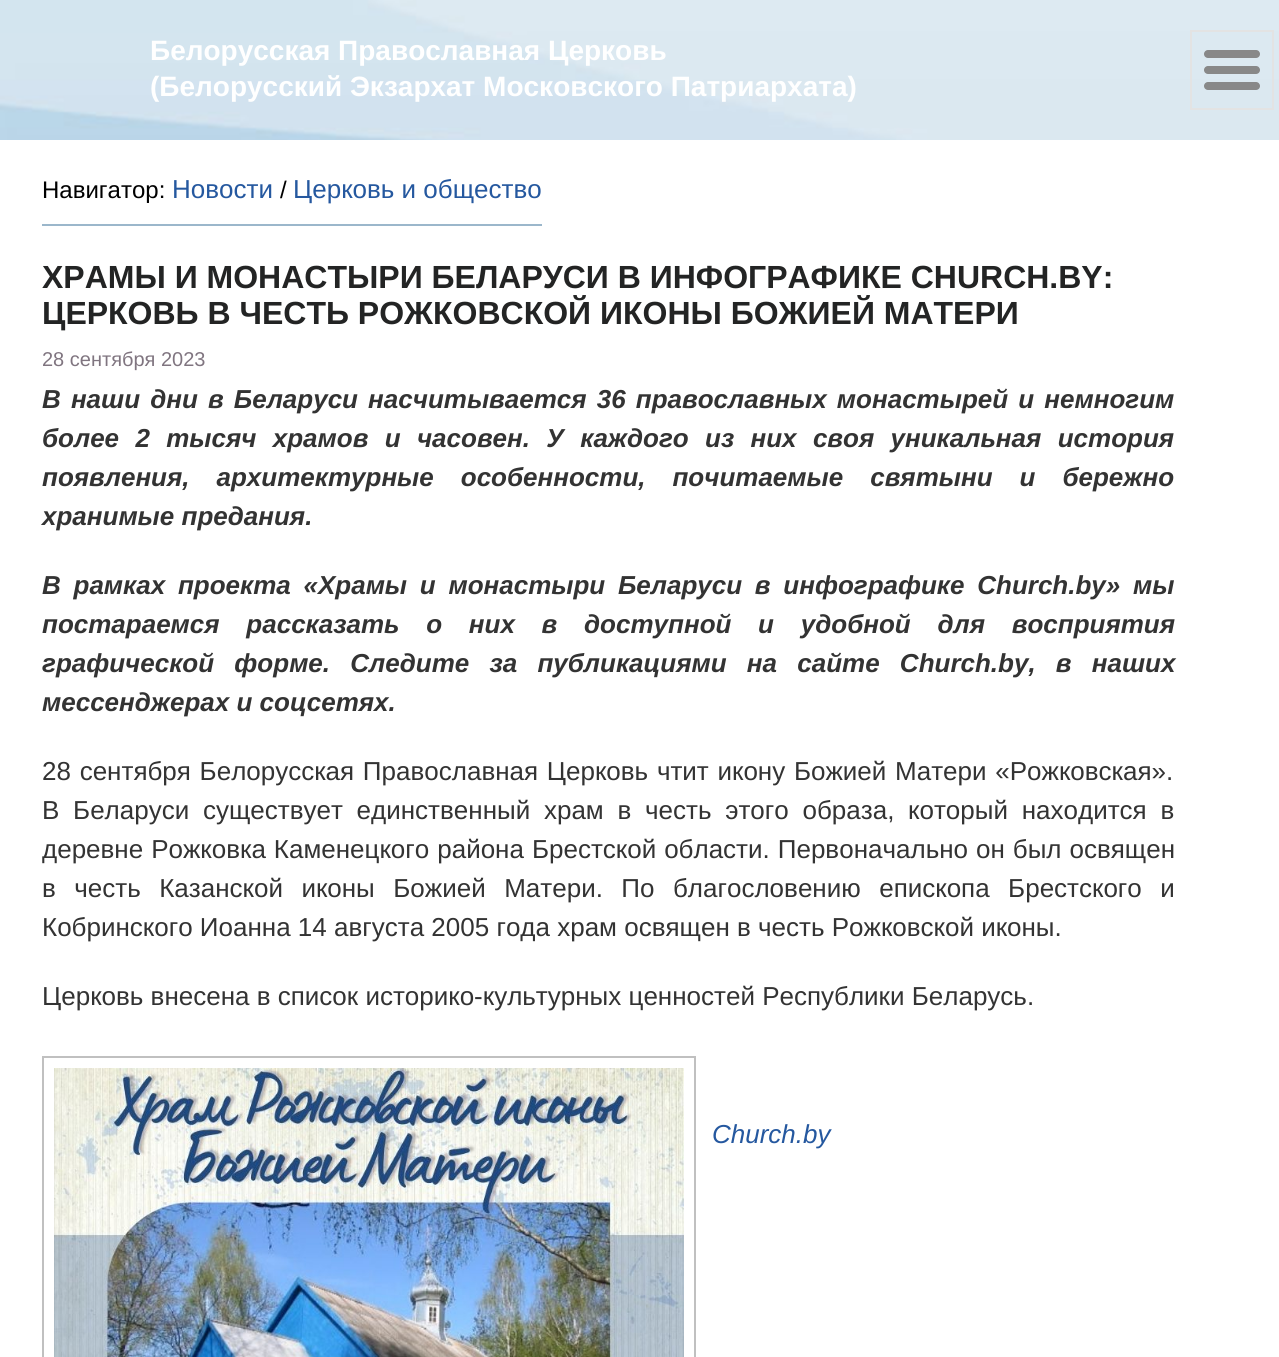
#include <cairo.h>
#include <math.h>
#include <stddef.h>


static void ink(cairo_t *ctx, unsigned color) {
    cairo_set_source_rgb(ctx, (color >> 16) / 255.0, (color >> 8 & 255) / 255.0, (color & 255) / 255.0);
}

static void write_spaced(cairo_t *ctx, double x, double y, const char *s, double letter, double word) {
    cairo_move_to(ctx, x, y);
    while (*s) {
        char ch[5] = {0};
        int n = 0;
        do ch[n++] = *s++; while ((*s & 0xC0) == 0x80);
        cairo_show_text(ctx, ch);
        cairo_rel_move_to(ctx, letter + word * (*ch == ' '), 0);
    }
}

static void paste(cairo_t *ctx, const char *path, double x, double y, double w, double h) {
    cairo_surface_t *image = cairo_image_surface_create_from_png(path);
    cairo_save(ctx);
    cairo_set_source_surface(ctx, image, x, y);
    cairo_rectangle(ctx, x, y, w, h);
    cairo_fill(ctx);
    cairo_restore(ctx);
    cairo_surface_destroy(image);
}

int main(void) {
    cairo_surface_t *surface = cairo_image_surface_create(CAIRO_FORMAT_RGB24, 1279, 1357);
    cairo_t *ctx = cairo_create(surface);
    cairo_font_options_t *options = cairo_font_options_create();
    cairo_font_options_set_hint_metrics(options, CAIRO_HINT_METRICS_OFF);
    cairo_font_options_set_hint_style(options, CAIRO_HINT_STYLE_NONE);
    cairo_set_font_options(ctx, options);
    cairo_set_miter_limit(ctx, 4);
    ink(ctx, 0xFFFFFF);
    cairo_paint(ctx);
    paste(ctx, "media/1.png", 0, 0, 1279, 140);
    cairo_select_font_face(ctx, "Liberation Sans", CAIRO_FONT_SLANT_NORMAL, CAIRO_FONT_WEIGHT_BOLD);
    cairo_set_font_size(ctx, 28);
    ink(ctx, 0xFFFFFF);
    cairo_move_to(ctx, 150, 60);
    cairo_show_text(ctx, "Белорусская Православная Церковь");
    cairo_move_to(ctx, 150, 96);
    cairo_show_text(ctx, "(Белорусский Экзархат Московского Патриархата)");
    cairo_rectangle(ctx, 1191, 31, 82, 78);
    ink(ctx, 0xE3E3E3);
    cairo_stroke(ctx);
    paste(ctx, "media/2.png", 1204, 50, 56, 40);
    cairo_select_font_face(ctx, "Liberation Sans", CAIRO_FONT_SLANT_NORMAL, CAIRO_FONT_WEIGHT_NORMAL);
    cairo_set_font_size(ctx, 24);
    ink(ctx, 0x000000);
    cairo_move_to(ctx, 42, 198);
    cairo_show_text(ctx, "Навигатор:");
    ink(ctx, 0x9BB7CB);
    cairo_rectangle(ctx, 42, 224, 500, 2);
    cairo_fill(ctx);
    cairo_set_font_size(ctx, 26);
    ink(ctx, 0x25589F);
    cairo_move_to(ctx, 172, 198);
    cairo_show_text(ctx, "Новости");
    cairo_set_font_size(ctx, 24);
    ink(ctx, 0x000000);
    cairo_move_to(ctx, 280, 198);
    cairo_show_text(ctx, "/");
    cairo_set_font_size(ctx, 26);
    ink(ctx, 0x25589F);
    cairo_move_to(ctx, 293, 198);
    cairo_show_text(ctx, "Церковь и общество");
    cairo_select_font_face(ctx, "Liberation Sans", CAIRO_FONT_SLANT_NORMAL, CAIRO_FONT_WEIGHT_BOLD);
    cairo_set_font_size(ctx, 32);
    ink(ctx, 0x232424);
    cairo_move_to(ctx, 42, 288);
    cairo_show_text(ctx, "ХРАМЫ И МОНАСТЫРИ БЕЛАРУСИ В ИНФОГРАФИКЕ СHURCH.BY:");
    cairo_move_to(ctx, 42, 324);
    cairo_show_text(ctx, "ЦЕРКОВЬ В ЧЕСТЬ РОЖКОВСКОЙ ИКОНЫ БОЖИЕЙ МАТЕРИ");
    cairo_select_font_face(ctx, "Liberation Sans", CAIRO_FONT_SLANT_NORMAL, CAIRO_FONT_WEIGHT_NORMAL);
    cairo_set_font_size(ctx, 20);
    ink(ctx, 0x807580);
    cairo_move_to(ctx, 42, 366);
    cairo_show_text(ctx, "28 сентября 2023");
    cairo_select_font_face(ctx, "Liberation Sans", CAIRO_FONT_SLANT_ITALIC, CAIRO_FONT_WEIGHT_BOLD);
    cairo_set_font_size(ctx, 26);
    ink(ctx, 0x333333);
    write_spaced(ctx, 42, 408, "В наши дни в Беларуси насчитывается 36 православных монастырей и немногим", 0, 2.9);
    write_spaced(ctx, 42, 447, "более 2 тысяч храмов и часовен. У каждого из них своя уникальная история", 0, 9.1);
    write_spaced(ctx, 42, 486, "появления, архитектурные особенности, почитаемые святыни и бережно", 0, 19.75);
    cairo_move_to(ctx, 42, 525);
    cairo_show_text(ctx, "хранимые предания.");
    write_spaced(ctx, 42, 594, "В рамках проекта «Храмы и монастыри Беларуси в инфографике Сhurch.by» мы", 0, 5.5);
    write_spaced(ctx, 42, 633, "постараемся рассказать о них в доступной и удобной для восприятия", 0, 19.5);
    write_spaced(ctx, 42, 672, "графической форме. Следите за публикациями на сайте Сhurch.by, в наших", 0, 13);
    cairo_move_to(ctx, 42, 711);
    cairo_show_text(ctx, "мессенджерах и соцсетях.");
    cairo_select_font_face(ctx, "Liberation Sans", CAIRO_FONT_SLANT_NORMAL, CAIRO_FONT_WEIGHT_NORMAL);
    write_spaced(ctx, 42, 780, "28 сентября Белорусская Православная Церковь чтит икону Божией Матери «Рожковская».", 0, 1.5);
    write_spaced(ctx, 42, 819, "В Беларуси существует единственный храм в честь этого образа, который находится в", 0, 6.5);
    write_spaced(ctx, 42, 858, "деревне Рожковка Каменецкого района Брестской области. Первоначально он был освящен", 0, 0.75);
    write_spaced(ctx, 42, 897, "в честь Казанской иконы Божией Матери. По благословению епископа Брестского и", 0, 11.25);
    cairo_move_to(ctx, 42, 936);
    cairo_show_text(ctx, "Кобринского Иоанна 14 августа 2005 года храм освящен в честь Рожковской иконы.");
    cairo_move_to(ctx, 42, 1005);
    cairo_show_text(ctx, "Церковь внесена в список историко-культурных ценностей Республики Беларусь.");
    cairo_rectangle(ctx, 43, 1057, 652, 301);
    ink(ctx, 0xC0C0C0);
    cairo_stroke(ctx);
    paste(ctx, "media/3.png", 54, 1068, 630, 289);
    cairo_select_font_face(ctx, "Liberation Sans", CAIRO_FONT_SLANT_ITALIC, CAIRO_FONT_WEIGHT_NORMAL);
    ink(ctx, 0x25589F);
    cairo_move_to(ctx, 712, 1143);
    cairo_show_text(ctx, "Church.by");
    cairo_surface_write_to_png(surface, "image.png");
    cairo_font_options_destroy(options);
    cairo_destroy(ctx);
    cairo_surface_destroy(surface);
    return 0;
}
